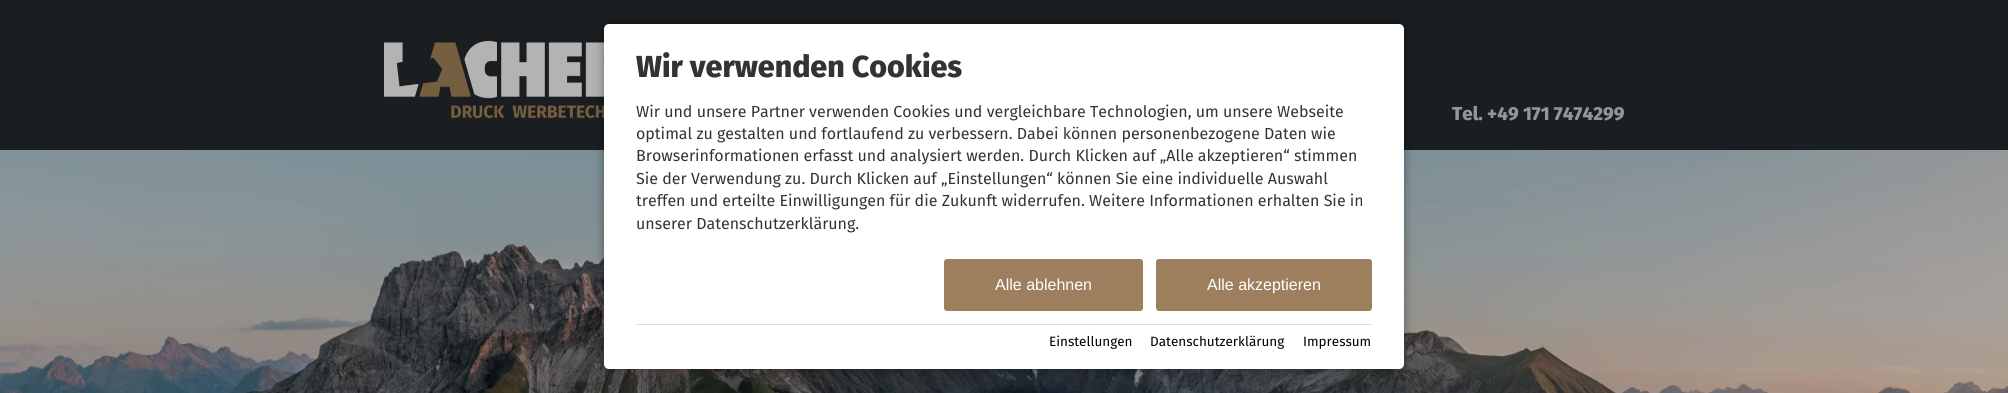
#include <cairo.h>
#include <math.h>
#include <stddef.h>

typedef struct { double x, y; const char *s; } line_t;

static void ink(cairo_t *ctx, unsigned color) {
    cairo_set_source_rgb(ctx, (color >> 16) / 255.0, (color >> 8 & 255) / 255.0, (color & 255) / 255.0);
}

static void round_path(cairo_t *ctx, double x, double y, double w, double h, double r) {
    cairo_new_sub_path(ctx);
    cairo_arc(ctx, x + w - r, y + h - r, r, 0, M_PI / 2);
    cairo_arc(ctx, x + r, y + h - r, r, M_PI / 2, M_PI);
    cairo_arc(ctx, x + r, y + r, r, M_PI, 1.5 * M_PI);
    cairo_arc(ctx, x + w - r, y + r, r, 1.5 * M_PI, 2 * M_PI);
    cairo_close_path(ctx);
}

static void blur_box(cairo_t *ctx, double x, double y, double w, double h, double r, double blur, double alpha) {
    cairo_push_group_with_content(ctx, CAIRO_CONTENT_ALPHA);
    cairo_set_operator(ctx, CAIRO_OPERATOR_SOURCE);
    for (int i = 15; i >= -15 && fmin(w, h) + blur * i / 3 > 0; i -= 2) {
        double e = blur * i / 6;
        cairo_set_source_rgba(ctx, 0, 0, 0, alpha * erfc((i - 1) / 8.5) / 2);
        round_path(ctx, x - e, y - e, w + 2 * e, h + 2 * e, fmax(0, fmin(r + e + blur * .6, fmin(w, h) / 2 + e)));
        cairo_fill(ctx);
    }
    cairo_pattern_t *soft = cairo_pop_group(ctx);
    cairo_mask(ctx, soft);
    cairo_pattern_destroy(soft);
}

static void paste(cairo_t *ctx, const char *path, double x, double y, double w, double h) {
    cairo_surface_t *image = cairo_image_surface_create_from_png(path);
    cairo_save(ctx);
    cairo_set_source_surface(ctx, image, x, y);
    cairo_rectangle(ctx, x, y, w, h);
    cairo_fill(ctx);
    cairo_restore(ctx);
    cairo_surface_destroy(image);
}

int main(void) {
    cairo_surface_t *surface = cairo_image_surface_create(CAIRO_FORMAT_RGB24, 2008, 393);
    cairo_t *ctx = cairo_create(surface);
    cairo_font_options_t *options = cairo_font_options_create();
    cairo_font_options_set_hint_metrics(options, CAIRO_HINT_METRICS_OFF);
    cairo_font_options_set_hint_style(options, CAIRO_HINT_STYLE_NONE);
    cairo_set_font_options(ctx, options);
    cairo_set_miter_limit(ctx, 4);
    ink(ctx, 0x1B1E21);
    cairo_paint(ctx);
    paste(ctx, "media/1.png", 384, 40, 220, 79);
    paste(ctx, "media/2.png", 0, 150, 2008, 243);
    ink(ctx, 0x000000);
    blur_box(ctx, 604, 24, 800, 345, 5, 5, 0.4);
    ink(ctx, 0xFFFFFF);
    round_path(ctx, 604, 24, 800, 345, 5);
    cairo_fill(ctx);
    cairo_select_font_face(ctx, "Fira Sans ExtraBold", CAIRO_FONT_SLANT_NORMAL, CAIRO_FONT_WEIGHT_NORMAL);
    cairo_set_font_size(ctx, 30.4);
    ink(ctx, 0x333333);
    cairo_move_to(ctx, 636, 77);
    cairo_show_text(ctx, "Wir verwenden Cookies");
    cairo_select_font_face(ctx, "Fira Sans", CAIRO_FONT_SLANT_NORMAL, CAIRO_FONT_WEIGHT_NORMAL);
    cairo_set_font_size(ctx, 16);
    {
        static const line_t items[] = {
            {636, 117, "Wir und unsere Partner verwenden Cookies und vergleichbare Technologien, um unsere Webseite"},
            {636, 139, "optimal zu gestalten und fortlaufend zu verbessern. Dabei können personenbezogene Daten wie"},
            {636, 161, "Browserinformationen erfasst und analysiert werden. Durch Klicken auf „Alle akzeptieren“ stimmen"},
            {636, 184, "Sie der Verwendung zu. Durch Klicken auf „Einstellungen“ können Sie eine individuelle Auswahl"},
            {636, 206, "treffen und erteilte Einwilligungen für die Zukunft widerrufen. Weitere Informationen erhalten Sie in"},
            {636, 229, "unserer Datenschutzerklärung."},
        };
        for (size_t i = 0; i < sizeof items / sizeof *items; i++) {
            cairo_move_to(ctx, items[i].x, items[i].y);
            cairo_show_text(ctx, items[i].s);
        }
    }
    ink(ctx, 0x9E7F5D);
    round_path(ctx, 944, 259, 199, 52, 3);
    cairo_fill(ctx);
    cairo_select_font_face(ctx, "Liberation Sans", CAIRO_FONT_SLANT_NORMAL, CAIRO_FONT_WEIGHT_NORMAL);
    ink(ctx, 0xFFFFFF);
    cairo_move_to(ctx, 995, 290);
    cairo_show_text(ctx, "Alle ablehnen");
    ink(ctx, 0x9E7F5D);
    round_path(ctx, 1156, 259, 216, 52, 3);
    cairo_fill(ctx);
    ink(ctx, 0xFFFFFF);
    cairo_move_to(ctx, 1207, 290);
    cairo_show_text(ctx, "Alle akzeptieren");
    ink(ctx, 0xDDDDDD);
    cairo_rectangle(ctx, 636, 324, 736, 1);
    cairo_fill(ctx);
    cairo_select_font_face(ctx, "Fira Sans", CAIRO_FONT_SLANT_NORMAL, CAIRO_FONT_WEIGHT_NORMAL);
    cairo_set_font_size(ctx, 13.5);
    ink(ctx, 0x000000);
    {
        static const line_t items[] = {
            {1049, 346, "Einstellungen"},
            {1150, 346, "Datenschutzerklärung"},
            {1303, 346, "Impressum"},
        };
        for (size_t i = 0; i < sizeof items / sizeof *items; i++) {
            cairo_move_to(ctx, items[i].x, items[i].y);
            cairo_show_text(ctx, items[i].s);
        }
    }
    cairo_select_font_face(ctx, "Fira Sans ExtraBold", CAIRO_FONT_SLANT_NORMAL, CAIRO_FONT_WEIGHT_NORMAL);
    cairo_set_font_size(ctx, 18.75);
    ink(ctx, 0x949595);
    cairo_move_to(ctx, 1452, 120);
    cairo_show_text(ctx, "Tel. +49 171 7474299");
    cairo_surface_write_to_png(surface, "image.png");
    cairo_font_options_destroy(options);
    cairo_destroy(ctx);
    cairo_surface_destroy(surface);
    return 0;
}
